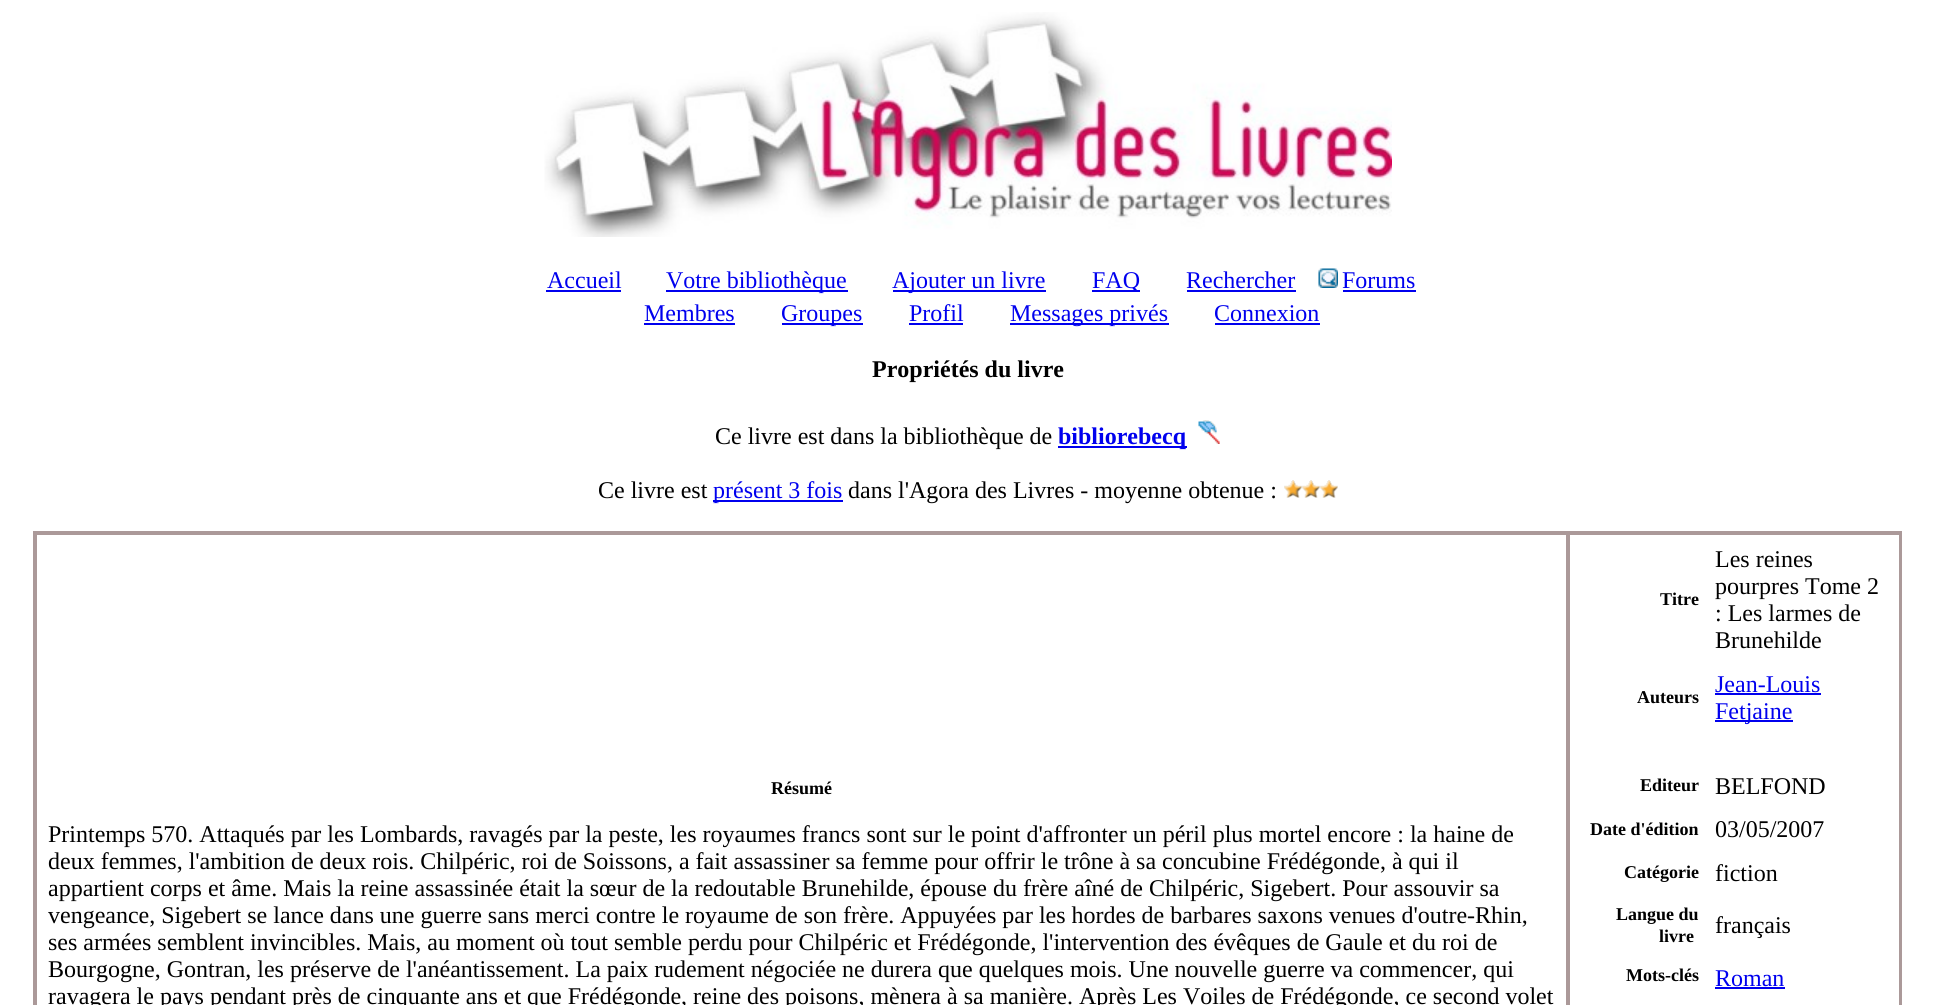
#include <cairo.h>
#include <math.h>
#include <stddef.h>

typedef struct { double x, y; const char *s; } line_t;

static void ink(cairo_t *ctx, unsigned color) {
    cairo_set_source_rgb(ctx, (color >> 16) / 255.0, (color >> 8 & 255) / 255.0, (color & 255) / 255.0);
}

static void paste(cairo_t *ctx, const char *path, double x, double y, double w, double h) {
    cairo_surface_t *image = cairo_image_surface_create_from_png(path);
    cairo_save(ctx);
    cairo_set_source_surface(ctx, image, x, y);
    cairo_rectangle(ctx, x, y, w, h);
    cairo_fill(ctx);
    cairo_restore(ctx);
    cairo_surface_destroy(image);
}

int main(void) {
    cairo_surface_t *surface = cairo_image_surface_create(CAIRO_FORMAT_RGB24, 1934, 1005);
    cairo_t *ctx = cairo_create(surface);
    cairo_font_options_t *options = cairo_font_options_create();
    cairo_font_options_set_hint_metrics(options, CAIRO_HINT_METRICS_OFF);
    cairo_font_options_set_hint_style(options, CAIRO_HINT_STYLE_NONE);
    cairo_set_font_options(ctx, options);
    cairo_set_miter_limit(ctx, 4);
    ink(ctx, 0xFFFFFF);
    cairo_paint(ctx);
    paste(ctx, "media/1.png", 544, 12, 848, 225);
    cairo_select_font_face(ctx, "Liberation Serif", CAIRO_FONT_SLANT_NORMAL, CAIRO_FONT_WEIGHT_NORMAL);
    cairo_set_font_size(ctx, 24);
    ink(ctx, 0x0000EE);
    cairo_move_to(ctx, 547, 288);
    cairo_show_text(ctx, "Accueil");
    cairo_rectangle(ctx, 546, 290, 75, 2);
    cairo_fill(ctx);
    cairo_rectangle(ctx, 666, 290, 182, 2);
    cairo_fill(ctx);
    cairo_move_to(ctx, 666, 288);
    cairo_show_text(ctx, "Votre bibliothèque");
    cairo_rectangle(ctx, 893, 290, 153, 2);
    cairo_fill(ctx);
    cairo_move_to(ctx, 892, 288);
    cairo_show_text(ctx, "Ajouter un livre");
    cairo_rectangle(ctx, 1092, 290, 48, 2);
    cairo_fill(ctx);
    cairo_move_to(ctx, 1092, 288);
    cairo_show_text(ctx, "FAQ");
    cairo_move_to(ctx, 1186, 288);
    cairo_show_text(ctx, "Rechercher");
    cairo_rectangle(ctx, 1187, 290, 109, 2);
    cairo_fill(ctx);
    paste(ctx, "media/2.png", 1318, 268, 20, 20);
    cairo_move_to(ctx, 1342, 288);
    cairo_show_text(ctx, "Forums");
    cairo_rectangle(ctx, 1343, 290, 73, 2);
    cairo_fill(ctx);
    cairo_move_to(ctx, 644, 321);
    cairo_show_text(ctx, "Membres");
    cairo_rectangle(ctx, 644, 323, 91, 2);
    cairo_fill(ctx);
    cairo_rectangle(ctx, 782, 323, 81, 2);
    cairo_fill(ctx);
    cairo_move_to(ctx, 781, 321);
    cairo_show_text(ctx, "Groupes");
    cairo_move_to(ctx, 909, 321);
    cairo_show_text(ctx, "Profil");
    cairo_rectangle(ctx, 909, 323, 54, 2);
    cairo_fill(ctx);
    cairo_rectangle(ctx, 1010, 323, 159, 2);
    cairo_fill(ctx);
    cairo_move_to(ctx, 1010, 321);
    cairo_show_text(ctx, "Messages privés");
    cairo_move_to(ctx, 1214, 321);
    cairo_show_text(ctx, "Connexion");
    cairo_rectangle(ctx, 1215, 323, 105, 2);
    cairo_fill(ctx);
    cairo_select_font_face(ctx, "Liberation Serif", CAIRO_FONT_SLANT_NORMAL, CAIRO_FONT_WEIGHT_BOLD);
    ink(ctx, 0x000000);
    cairo_move_to(ctx, 872, 377);
    cairo_show_text(ctx, "Propriétés du livre");
    cairo_select_font_face(ctx, "Liberation Serif", CAIRO_FONT_SLANT_NORMAL, CAIRO_FONT_WEIGHT_NORMAL);
    cairo_move_to(ctx, 715, 444);
    cairo_show_text(ctx, "Ce livre est dans la bibliothèque de");
    ink(ctx, 0x0000EE);
    cairo_rectangle(ctx, 1058, 446, 129, 2);
    cairo_fill(ctx);
    cairo_select_font_face(ctx, "Liberation Serif", CAIRO_FONT_SLANT_NORMAL, CAIRO_FONT_WEIGHT_BOLD);
    cairo_move_to(ctx, 1058, 444);
    cairo_show_text(ctx, "bibliorebecq");
    paste(ctx, "media/3.png", 1198, 420, 22, 24);
    cairo_select_font_face(ctx, "Liberation Serif", CAIRO_FONT_SLANT_NORMAL, CAIRO_FONT_WEIGHT_NORMAL);
    ink(ctx, 0x000000);
    cairo_move_to(ctx, 598, 498);
    cairo_show_text(ctx, "Ce livre est");
    ink(ctx, 0x0000EE);
    cairo_rectangle(ctx, 713, 500, 130, 2);
    cairo_fill(ctx);
    cairo_move_to(ctx, 713, 498);
    cairo_show_text(ctx, "présent 3 fois");
    ink(ctx, 0x000000);
    cairo_move_to(ctx, 848, 498);
    cairo_show_text(ctx, "dans l'Agora des Livres - moyenne obtenue :");
    paste(ctx, "media/4.png", 1284, 480, 18, 18);
    paste(ctx, "media/5.png", 1302, 480, 18, 18);
    paste(ctx, "media/6.png", 1320, 480, 18, 18);
    cairo_rectangle(ctx, 34, 532, 1867, 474);
    ink(ctx, 0xAB9999);
    cairo_stroke(ctx);
    cairo_rectangle(ctx, 36, 534, 1531, 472);
    cairo_stroke(ctx);
    cairo_select_font_face(ctx, "Liberation Serif", CAIRO_FONT_SLANT_NORMAL, CAIRO_FONT_WEIGHT_BOLD);
    cairo_set_font_size(ctx, 18);
    ink(ctx, 0x000000);
    cairo_move_to(ctx, 771, 794);
    cairo_show_text(ctx, "Résumé");
    cairo_select_font_face(ctx, "Liberation Serif", CAIRO_FONT_SLANT_NORMAL, CAIRO_FONT_WEIGHT_NORMAL);
    cairo_set_font_size(ctx, 24);
    {
        static const line_t items[] = {
            {48, 842, "Printemps 570. Attaqués par les Lombards, ravagés par la peste, les royaumes francs sont sur le point d'affronter un péril plus mortel encore : la haine de"},
            {48, 869, "deux femmes, l'ambition de deux rois. Chilpéric, roi de Soissons, a fait assassiner sa femme pour offrir le trône à sa concubine Frédégonde, à qui il"},
            {48, 896, "appartient corps et âme. Mais la reine assassinée était la sœur de la redoutable Brunehilde, épouse du frère aîné de Chilpéric, Sigebert. Pour assouvir sa"},
            {48, 923, "vengeance, Sigebert se lance dans une guerre sans merci contre le royaume de son frère. Appuyées par les hordes de barbares saxons venues d'outre-Rhin,"},
            {48, 950, "ses armées semblent invincibles. Mais, au moment où tout semble perdu pour Chilpéric et Frédégonde, l'intervention des évêques de Gaule et du roi de"},
            {48, 977, "Bourgogne, Gontran, les préserve de l'anéantissement. La paix rudement négociée ne durera que quelques mois. Une nouvelle guerre va commencer, qui"},
            {48, 1004, "ravagera le pays pendant près de cinquante ans et que Frédégonde, reine des poisons, mènera à sa manière. Après Les Voiles de Frédégonde, ce second volet"},
        };
        for (size_t i = 0; i < sizeof items / sizeof *items; i++) {
            cairo_move_to(ctx, items[i].x, items[i].y);
            cairo_show_text(ctx, items[i].s);
        }
    }
    cairo_rectangle(ctx, 1569, 534, 331, 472);
    ink(ctx, 0xAB9999);
    cairo_stroke(ctx);
    cairo_select_font_face(ctx, "Liberation Serif", CAIRO_FONT_SLANT_NORMAL, CAIRO_FONT_WEIGHT_BOLD);
    cairo_set_font_size(ctx, 18);
    ink(ctx, 0x000000);
    cairo_move_to(ctx, 1660, 605);
    cairo_show_text(ctx, "Titre");
    cairo_select_font_face(ctx, "Liberation Serif", CAIRO_FONT_SLANT_NORMAL, CAIRO_FONT_WEIGHT_NORMAL);
    cairo_set_font_size(ctx, 24);
    {
        static const line_t items[] = {
            {1715, 567, "Les reines"},
            {1715, 594, "pourpres Tome 2"},
            {1715, 621, ": Les larmes de"},
            {1715, 648, "Brunehilde"},
        };
        for (size_t i = 0; i < sizeof items / sizeof *items; i++) {
            cairo_move_to(ctx, items[i].x, items[i].y);
            cairo_show_text(ctx, items[i].s);
        }
    }
    cairo_select_font_face(ctx, "Liberation Serif", CAIRO_FONT_SLANT_NORMAL, CAIRO_FONT_WEIGHT_BOLD);
    cairo_set_font_size(ctx, 18);
    cairo_move_to(ctx, 1637, 703);
    cairo_show_text(ctx, "Auteurs");
    cairo_select_font_face(ctx, "Liberation Serif", CAIRO_FONT_SLANT_NORMAL, CAIRO_FONT_WEIGHT_NORMAL);
    cairo_set_font_size(ctx, 24);
    ink(ctx, 0x0000EE);
    cairo_move_to(ctx, 1715, 692);
    cairo_show_text(ctx, "Jean-Louis");
    cairo_rectangle(ctx, 1715, 693, 106, 2);
    cairo_fill(ctx);
    cairo_rectangle(ctx, 1715, 720, 78, 2);
    cairo_fill(ctx);
    cairo_move_to(ctx, 1715, 719);
    cairo_show_text(ctx, "Fetjaine");
    cairo_select_font_face(ctx, "Liberation Serif", CAIRO_FONT_SLANT_NORMAL, CAIRO_FONT_WEIGHT_BOLD);
    cairo_set_font_size(ctx, 18);
    ink(ctx, 0x000000);
    cairo_move_to(ctx, 1640, 791);
    cairo_show_text(ctx, "Editeur");
    cairo_select_font_face(ctx, "Liberation Serif", CAIRO_FONT_SLANT_NORMAL, CAIRO_FONT_WEIGHT_NORMAL);
    cairo_set_font_size(ctx, 24);
    cairo_move_to(ctx, 1715, 794);
    cairo_show_text(ctx, "BELFOND");
    cairo_select_font_face(ctx, "Liberation Serif", CAIRO_FONT_SLANT_NORMAL, CAIRO_FONT_WEIGHT_BOLD);
    cairo_set_font_size(ctx, 18);
    cairo_move_to(ctx, 1590, 835);
    cairo_show_text(ctx, "Date d'édition");
    cairo_select_font_face(ctx, "Liberation Serif", CAIRO_FONT_SLANT_NORMAL, CAIRO_FONT_WEIGHT_NORMAL);
    cairo_set_font_size(ctx, 24);
    cairo_move_to(ctx, 1715, 837);
    cairo_show_text(ctx, "03/05/2007");
    cairo_select_font_face(ctx, "Liberation Serif", CAIRO_FONT_SLANT_NORMAL, CAIRO_FONT_WEIGHT_BOLD);
    cairo_set_font_size(ctx, 18);
    cairo_move_to(ctx, 1624, 878);
    cairo_show_text(ctx, "Catégorie");
    cairo_select_font_face(ctx, "Liberation Serif", CAIRO_FONT_SLANT_NORMAL, CAIRO_FONT_WEIGHT_NORMAL);
    cairo_set_font_size(ctx, 24);
    cairo_move_to(ctx, 1715, 881);
    cairo_show_text(ctx, "fiction");
    cairo_select_font_face(ctx, "Liberation Serif", CAIRO_FONT_SLANT_NORMAL, CAIRO_FONT_WEIGHT_BOLD);
    cairo_set_font_size(ctx, 18);
    cairo_move_to(ctx, 1616, 920);
    cairo_show_text(ctx, "Langue du");
    cairo_move_to(ctx, 1659, 942);
    cairo_show_text(ctx, "livre");
    cairo_select_font_face(ctx, "Liberation Serif", CAIRO_FONT_SLANT_NORMAL, CAIRO_FONT_WEIGHT_NORMAL);
    cairo_set_font_size(ctx, 24);
    cairo_move_to(ctx, 1715, 933);
    cairo_show_text(ctx, "français");
    cairo_select_font_face(ctx, "Liberation Serif", CAIRO_FONT_SLANT_NORMAL, CAIRO_FONT_WEIGHT_BOLD);
    cairo_set_font_size(ctx, 18);
    cairo_move_to(ctx, 1626, 981);
    cairo_show_text(ctx, "Mots-clés");
    cairo_select_font_face(ctx, "Liberation Serif", CAIRO_FONT_SLANT_NORMAL, CAIRO_FONT_WEIGHT_NORMAL);
    cairo_set_font_size(ctx, 24);
    ink(ctx, 0x0000EE);
    cairo_move_to(ctx, 1715, 986);
    cairo_show_text(ctx, "Roman");
    cairo_rectangle(ctx, 1715, 987, 70, 2);
    cairo_fill(ctx);
    cairo_surface_write_to_png(surface, "image.png");
    cairo_font_options_destroy(options);
    cairo_destroy(ctx);
    cairo_surface_destroy(surface);
    return 0;
}
